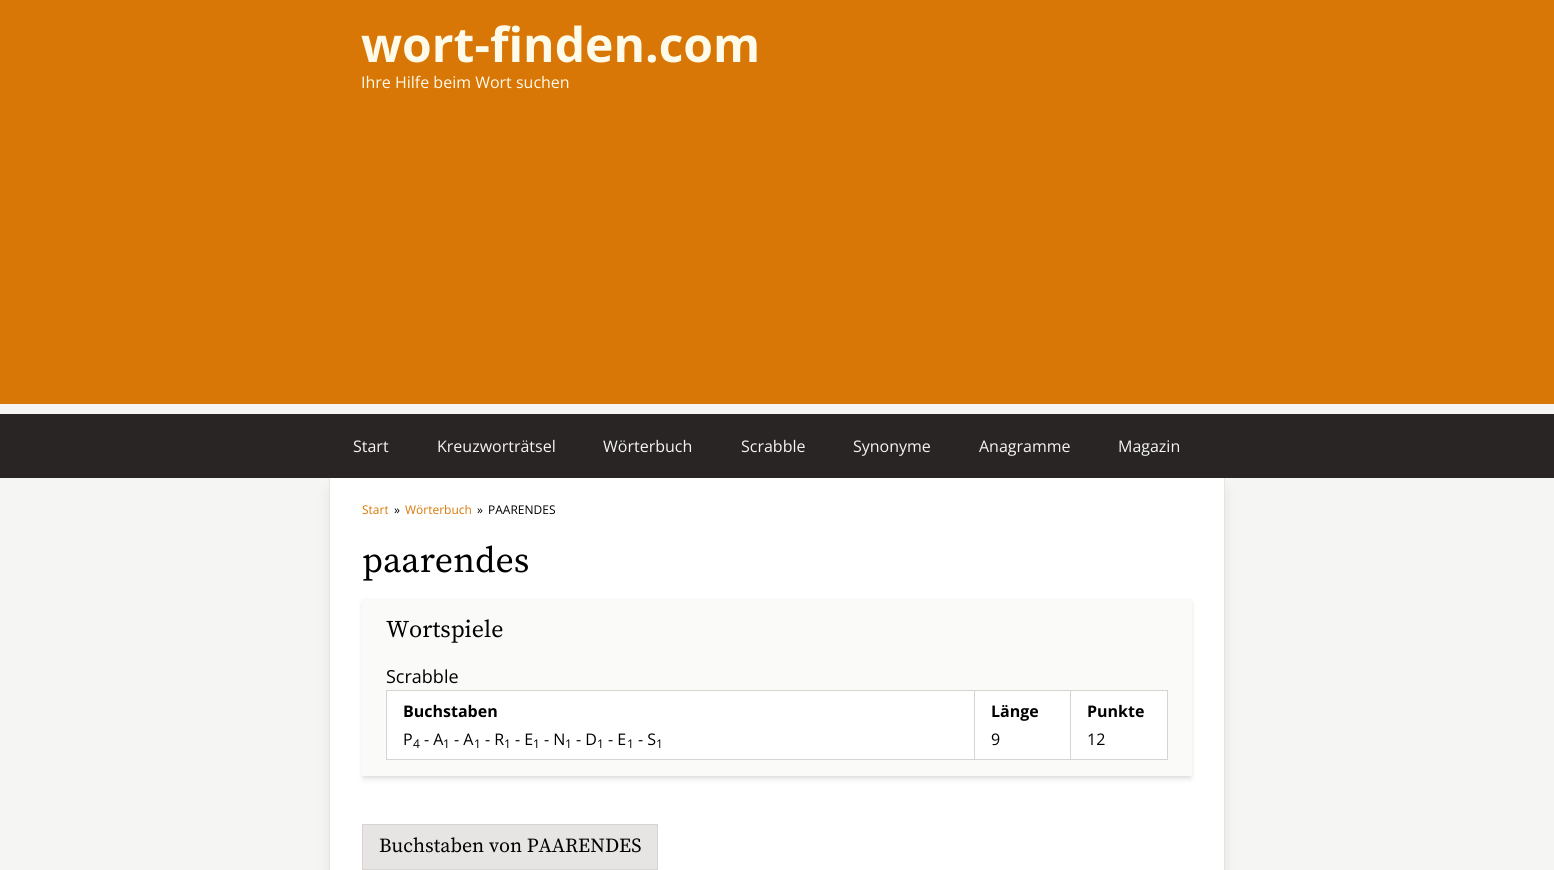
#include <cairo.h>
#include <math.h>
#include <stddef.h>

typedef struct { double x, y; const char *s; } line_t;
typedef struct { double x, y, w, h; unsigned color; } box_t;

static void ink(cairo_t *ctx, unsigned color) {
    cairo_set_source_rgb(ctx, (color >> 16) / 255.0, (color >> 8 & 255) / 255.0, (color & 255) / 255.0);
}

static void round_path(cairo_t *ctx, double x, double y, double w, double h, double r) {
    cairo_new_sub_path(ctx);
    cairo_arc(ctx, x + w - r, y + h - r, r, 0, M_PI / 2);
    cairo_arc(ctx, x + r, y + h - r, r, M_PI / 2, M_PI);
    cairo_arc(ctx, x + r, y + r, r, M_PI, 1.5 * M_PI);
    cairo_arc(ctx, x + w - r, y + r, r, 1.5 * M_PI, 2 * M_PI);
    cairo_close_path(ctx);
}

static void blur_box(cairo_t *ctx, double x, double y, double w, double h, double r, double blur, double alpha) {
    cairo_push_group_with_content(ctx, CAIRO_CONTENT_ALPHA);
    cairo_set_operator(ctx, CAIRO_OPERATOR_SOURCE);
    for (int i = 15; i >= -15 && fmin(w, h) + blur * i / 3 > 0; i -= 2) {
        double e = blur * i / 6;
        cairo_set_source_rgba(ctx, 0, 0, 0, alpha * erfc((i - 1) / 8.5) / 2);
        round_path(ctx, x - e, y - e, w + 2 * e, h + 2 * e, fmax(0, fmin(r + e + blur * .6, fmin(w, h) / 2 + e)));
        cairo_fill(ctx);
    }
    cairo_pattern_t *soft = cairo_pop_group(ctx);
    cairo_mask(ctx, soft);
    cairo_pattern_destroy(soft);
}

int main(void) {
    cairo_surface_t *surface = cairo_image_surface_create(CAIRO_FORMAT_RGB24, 1554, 870);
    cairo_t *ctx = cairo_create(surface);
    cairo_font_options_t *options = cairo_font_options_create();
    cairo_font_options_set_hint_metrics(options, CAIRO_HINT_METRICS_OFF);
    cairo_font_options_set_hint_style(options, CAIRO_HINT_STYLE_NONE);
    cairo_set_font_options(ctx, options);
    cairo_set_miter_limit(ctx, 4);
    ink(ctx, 0xF5F5F4);
    cairo_paint(ctx);
    ink(ctx, 0xD97706);
    cairo_rectangle(ctx, 0, 0, 1554, 404);
    cairo_fill(ctx);
    cairo_select_font_face(ctx, "Open Sans", CAIRO_FONT_SLANT_NORMAL, CAIRO_FONT_WEIGHT_BOLD);
    cairo_set_font_size(ctx, 48);
    ink(ctx, 0xFFFBEB);
    cairo_move_to(ctx, 361, 62);
    cairo_show_text(ctx, "wort-finden.com");
    cairo_select_font_face(ctx, "Open Sans", CAIRO_FONT_SLANT_NORMAL, CAIRO_FONT_WEIGHT_NORMAL);
    cairo_set_font_size(ctx, 16);
    cairo_move_to(ctx, 361, 88);
    cairo_show_text(ctx, "Ihre Hilfe beim Wort suchen");
    ink(ctx, 0x000000);
    blur_box(ctx, 332, 491, 890, 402, 0, 7.5, 0.1);
    ink(ctx, 0x292524);
    cairo_rectangle(ctx, 0, 414, 1554, 64);
    cairo_fill(ctx);
    ink(ctx, 0xF5F5F4);
    {
        static const line_t items[] = {
            {353, 452, "Start"},
            {437, 452, "Kreuzworträtsel"},
            {603, 452, "Wörterbuch"},
            {741, 452, "Scrabble"},
            {853, 452, "Synonyme"},
            {979, 452, "Anagramme"},
            {1118, 452, "Magazin"},
        };
        for (size_t i = 0; i < sizeof items / sizeof *items; i++) {
            cairo_move_to(ctx, items[i].x, items[i].y);
            cairo_show_text(ctx, items[i].s);
        }
    }
    {
        static const box_t items[] = {
            {330, 478, 894, 392, 0xFFFFFF},
            {1224, 478, 1, 392, 0xE7E5E4},
            {329, 478, 1, 392, 0xE7E5E4},
        };
        for (size_t i = 0; i < sizeof items / sizeof *items; i++) {
            ink(ctx, items[i].color);
            cairo_rectangle(ctx, items[i].x, items[i].y, items[i].w, items[i].h);
            cairo_fill(ctx);
        }
    }
    cairo_set_font_size(ctx, 12);
    ink(ctx, 0xD97706);
    cairo_move_to(ctx, 362, 514);
    cairo_show_text(ctx, "Start");
    ink(ctx, 0x000000);
    cairo_move_to(ctx, 394, 514);
    cairo_show_text(ctx, "»");
    ink(ctx, 0xD97706);
    cairo_move_to(ctx, 405, 514);
    cairo_show_text(ctx, "Wörterbuch");
    ink(ctx, 0x000000);
    cairo_move_to(ctx, 477, 514);
    cairo_show_text(ctx, "»");
    cairo_move_to(ctx, 488, 514);
    cairo_show_text(ctx, "PAARENDES");
    cairo_select_font_face(ctx, "Source Serif Pro", CAIRO_FONT_SLANT_NORMAL, CAIRO_FONT_WEIGHT_NORMAL);
    cairo_set_font_size(ctx, 36);
    cairo_move_to(ctx, 362, 572);
    cairo_show_text(ctx, "paarendes");
    ink(ctx, 0x000000);
    blur_box(ctx, 364, 602, 826, 174, 0, 2, 0.1);
    blur_box(ctx, 363, 603, 828, 176, 0, 3, 0.1);
    ink(ctx, 0xFAFAF9);
    cairo_rectangle(ctx, 362, 598, 830, 178);
    cairo_fill(ctx);
    cairo_set_font_size(ctx, 24);
    ink(ctx, 0x000000);
    cairo_move_to(ctx, 386, 637);
    cairo_show_text(ctx, "Wortspiele");
    cairo_select_font_face(ctx, "Open Sans", CAIRO_FONT_SLANT_NORMAL, CAIRO_FONT_WEIGHT_NORMAL);
    cairo_set_font_size(ctx, 18);
    cairo_move_to(ctx, 386, 683);
    cairo_show_text(ctx, "Scrabble");
    ink(ctx, 0xFFFFFF);
    cairo_rectangle(ctx, 386.5, 690.5, 781, 69);
    cairo_fill_preserve(ctx);
    ink(ctx, 0xD6D3D1);
    cairo_set_line_width(ctx, 1);
    cairo_stroke(ctx);
    cairo_rectangle(ctx, 974, 691, 1, 68);
    cairo_fill(ctx);
    cairo_select_font_face(ctx, "Open Sans", CAIRO_FONT_SLANT_NORMAL, CAIRO_FONT_WEIGHT_BOLD);
    cairo_set_font_size(ctx, 16);
    ink(ctx, 0x000000);
    cairo_move_to(ctx, 403, 717);
    cairo_show_text(ctx, "Buchstaben");
    cairo_select_font_face(ctx, "Open Sans", CAIRO_FONT_SLANT_NORMAL, CAIRO_FONT_WEIGHT_NORMAL);
    cairo_move_to(ctx, 403, 745);
    cairo_show_text(ctx, "P");
    cairo_set_font_size(ctx, 12);
    cairo_move_to(ctx, 413, 748);
    cairo_show_text(ctx, "4");
    cairo_set_font_size(ctx, 16);
    cairo_move_to(ctx, 424, 745);
    cairo_show_text(ctx, "- A");
    cairo_set_font_size(ctx, 12);
    cairo_move_to(ctx, 443, 748);
    cairo_show_text(ctx, "1");
    cairo_set_font_size(ctx, 16);
    cairo_move_to(ctx, 454, 745);
    cairo_show_text(ctx, "- A");
    cairo_set_font_size(ctx, 12);
    cairo_move_to(ctx, 474, 748);
    cairo_show_text(ctx, "1");
    cairo_set_font_size(ctx, 16);
    cairo_move_to(ctx, 485, 745);
    cairo_show_text(ctx, "- R");
    cairo_set_font_size(ctx, 12);
    cairo_move_to(ctx, 504, 748);
    cairo_show_text(ctx, "1");
    cairo_set_font_size(ctx, 16);
    cairo_move_to(ctx, 515, 745);
    cairo_show_text(ctx, "- E");
    cairo_set_font_size(ctx, 12);
    cairo_move_to(ctx, 533, 748);
    cairo_show_text(ctx, "1");
    cairo_set_font_size(ctx, 16);
    cairo_move_to(ctx, 544, 745);
    cairo_show_text(ctx, "- N");
    cairo_set_font_size(ctx, 12);
    cairo_move_to(ctx, 565, 748);
    cairo_show_text(ctx, "1");
    cairo_set_font_size(ctx, 16);
    cairo_move_to(ctx, 576, 745);
    cairo_show_text(ctx, "- D");
    cairo_set_font_size(ctx, 12);
    cairo_move_to(ctx, 597, 748);
    cairo_show_text(ctx, "1");
    cairo_set_font_size(ctx, 16);
    cairo_move_to(ctx, 608, 745);
    cairo_show_text(ctx, "- E");
    cairo_set_font_size(ctx, 12);
    cairo_move_to(ctx, 627, 748);
    cairo_show_text(ctx, "1");
    cairo_set_font_size(ctx, 16);
    cairo_move_to(ctx, 638, 745);
    cairo_show_text(ctx, "- S");
    cairo_set_font_size(ctx, 12);
    cairo_move_to(ctx, 656, 748);
    cairo_show_text(ctx, "1");
    ink(ctx, 0xD6D3D1);
    cairo_rectangle(ctx, 1070, 691, 1, 68);
    cairo_fill(ctx);
    cairo_select_font_face(ctx, "Open Sans", CAIRO_FONT_SLANT_NORMAL, CAIRO_FONT_WEIGHT_BOLD);
    cairo_set_font_size(ctx, 16);
    ink(ctx, 0x000000);
    cairo_move_to(ctx, 991, 717);
    cairo_show_text(ctx, "Länge");
    cairo_select_font_face(ctx, "Open Sans", CAIRO_FONT_SLANT_NORMAL, CAIRO_FONT_WEIGHT_NORMAL);
    cairo_move_to(ctx, 991, 745);
    cairo_show_text(ctx, "9");
    cairo_select_font_face(ctx, "Open Sans", CAIRO_FONT_SLANT_NORMAL, CAIRO_FONT_WEIGHT_BOLD);
    cairo_move_to(ctx, 1087, 717);
    cairo_show_text(ctx, "Punkte");
    cairo_select_font_face(ctx, "Open Sans", CAIRO_FONT_SLANT_NORMAL, CAIRO_FONT_WEIGHT_NORMAL);
    cairo_move_to(ctx, 1087, 745);
    cairo_show_text(ctx, "12");
    {
        static const box_t items[] = {
            {362, 824, 296, 1, 0xD6D3D1},
            {657, 824, 1, 46, 0xD6D3D1},
            {362, 824, 1, 46, 0xD6D3D1},
            {363, 825, 294, 44, 0xE7E5E4},
        };
        for (size_t i = 0; i < sizeof items / sizeof *items; i++) {
            ink(ctx, items[i].color);
            cairo_rectangle(ctx, items[i].x, items[i].y, items[i].w, items[i].h);
            cairo_fill(ctx);
        }
    }
    cairo_select_font_face(ctx, "Source Serif Pro", CAIRO_FONT_SLANT_NORMAL, CAIRO_FONT_WEIGHT_NORMAL);
    cairo_set_font_size(ctx, 20);
    ink(ctx, 0x000000);
    cairo_move_to(ctx, 379, 852);
    cairo_show_text(ctx, "Buchstaben von PAARENDES");
    ink(ctx, 0xD6D3D1);
    cairo_rectangle(ctx, 362, 869, 296, 1);
    cairo_fill(ctx);
    cairo_surface_write_to_png(surface, "image.png");
    cairo_font_options_destroy(options);
    cairo_destroy(ctx);
    cairo_surface_destroy(surface);
    return 0;
}
